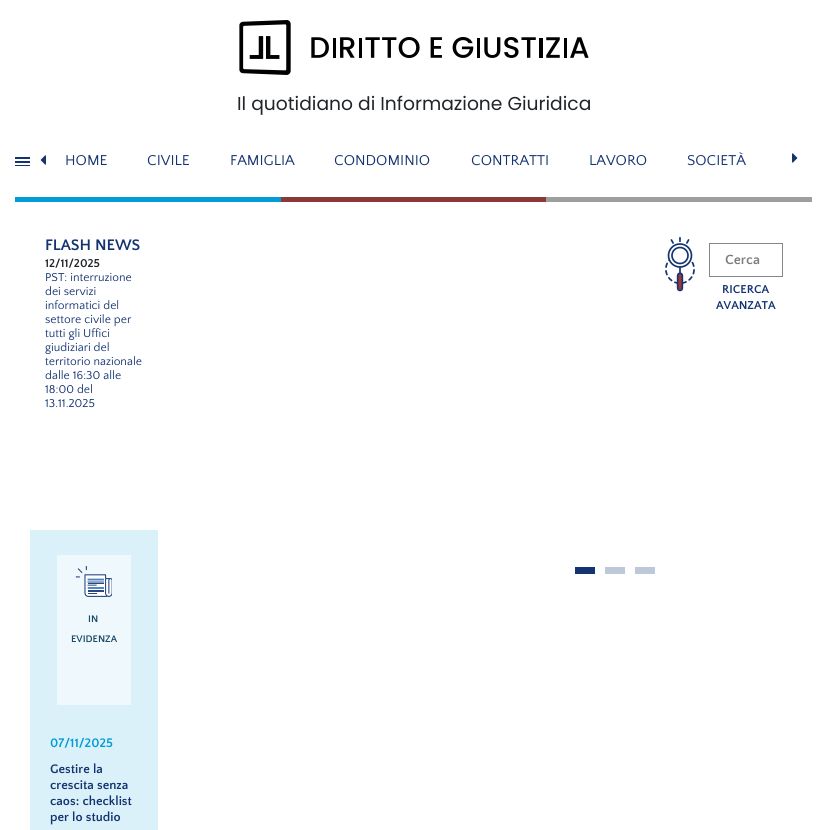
#include <cairo.h>
#include <math.h>
#include <stddef.h>

typedef struct { double x, y; const char *s; } line_t;
typedef struct { double x, y, w, h; unsigned color; } box_t;

static void ink(cairo_t *ctx, unsigned color) {
    cairo_set_source_rgb(ctx, (color >> 16) / 255.0, (color >> 8 & 255) / 255.0, (color & 255) / 255.0);
}

static void paste(cairo_t *ctx, const char *path, double x, double y, double w, double h) {
    cairo_surface_t *image = cairo_image_surface_create_from_png(path);
    cairo_save(ctx);
    cairo_set_source_surface(ctx, image, x, y);
    cairo_rectangle(ctx, x, y, w, h);
    cairo_fill(ctx);
    cairo_restore(ctx);
    cairo_surface_destroy(image);
}

int main(void) {
    cairo_surface_t *surface = cairo_image_surface_create(CAIRO_FORMAT_RGB24, 827, 830);
    cairo_t *ctx = cairo_create(surface);
    cairo_font_options_t *options = cairo_font_options_create();
    cairo_font_options_set_hint_metrics(options, CAIRO_HINT_METRICS_OFF);
    cairo_font_options_set_hint_style(options, CAIRO_HINT_STYLE_NONE);
    cairo_set_font_options(ctx, options);
    cairo_set_miter_limit(ctx, 4);
    ink(ctx, 0xFFFFFF);
    cairo_paint(ctx);
    paste(ctx, "media/1.png", 239, 20, 350, 55);
    cairo_select_font_face(ctx, "Poppins", CAIRO_FONT_SLANT_NORMAL, CAIRO_FONT_WEIGHT_NORMAL);
    cairo_set_font_size(ctx, 18.7);
    ink(ctx, 0x212529);
    cairo_move_to(ctx, 237, 110);
    cairo_show_text(ctx, "Il quotidiano di Informazione Giuridica");
    {
        static const box_t items[] = {
            {15, 197, 266, 5, 0x009BD8},
            {281, 197, 265, 5, 0x8A3838},
            {546, 197, 266, 5, 0x9D9F9D},
            {15, 157, 15, 2, 0x133371},
            {15, 161, 15, 2, 0x133371},
            {15, 165, 15, 1, 0x133371},
        };
        for (size_t i = 0; i < sizeof items / sizeof *items; i++) {
            ink(ctx, items[i].color);
            cairo_rectangle(ctx, items[i].x, items[i].y, items[i].w, items[i].h);
            cairo_fill(ctx);
        }
    }
    paste(ctx, "media/2.png", 40, 155, 6, 10);
    cairo_select_font_face(ctx, "Quattrocento Sans", CAIRO_FONT_SLANT_NORMAL, CAIRO_FONT_WEIGHT_NORMAL);
    cairo_set_font_size(ctx, 15);
    {
        static const line_t items[] = {
            {65, 165, "HOME"},
            {147, 165, "CIVILE"},
            {230, 165, "FAMIGLIA"},
            {334, 165, "CONDOMINIO"},
            {471, 165, "CONTRATTI"},
            {589, 165, "LAVORO"},
            {687, 165, "SOCIETÀ"},
        };
        for (size_t i = 0; i < sizeof items / sizeof *items; i++) {
            cairo_move_to(ctx, items[i].x, items[i].y);
            cairo_show_text(ctx, items[i].s);
        }
    }
    paste(ctx, "media/3.png", 792, 153, 6, 10);
    cairo_select_font_face(ctx, "Quattrocento Sans", CAIRO_FONT_SLANT_NORMAL, CAIRO_FONT_WEIGHT_BOLD);
    cairo_set_font_size(ctx, 16);
    cairo_move_to(ctx, 45, 250);
    cairo_show_text(ctx, "FLASH NEWS");
    cairo_set_font_size(ctx, 12);
    ink(ctx, 0x212529);
    cairo_move_to(ctx, 45, 267);
    cairo_show_text(ctx, "12/11/2025");
    cairo_select_font_face(ctx, "Quattrocento Sans", CAIRO_FONT_SLANT_NORMAL, CAIRO_FONT_WEIGHT_NORMAL);
    ink(ctx, 0x133371);
    {
        static const line_t items[] = {
            {45, 281, "PST: interruzione"},
            {45, 295, "dei servizi"},
            {45, 309, "informatici del"},
            {45, 323, "settore civile per"},
            {45, 337, "tutti gli Uffici"},
            {45, 351, "giudiziari del"},
            {45, 365, "territorio nazionale"},
            {45, 379, "dalle 16:30 alle"},
            {45, 393, "18:00 del"},
            {45, 407, "13.11.2025"},
        };
        for (size_t i = 0; i < sizeof items / sizeof *items; i++) {
            cairo_move_to(ctx, items[i].x, items[i].y);
            cairo_show_text(ctx, items[i].s);
        }
    }
    paste(ctx, "media/4.png", 665, 237, 30, 55);
    cairo_rectangle(ctx, 709.5, 243.5, 73, 33);
    ink(ctx, 0x848888);
    cairo_set_line_width(ctx, 1);
    cairo_stroke(ctx);
    cairo_select_font_face(ctx, "Quattrocento Sans", CAIRO_FONT_SLANT_NORMAL, CAIRO_FONT_WEIGHT_BOLD);
    cairo_set_font_size(ctx, 14);
    ink(ctx, 0x7C7C7C);
    cairo_move_to(ctx, 725, 264);
    cairo_show_text(ctx, "Cerca");
    cairo_set_font_size(ctx, 12);
    ink(ctx, 0x133371);
    cairo_move_to(ctx, 722, 293);
    cairo_show_text(ctx, "RICERCA");
    cairo_move_to(ctx, 716, 309);
    cairo_show_text(ctx, "AVANZATA");
    {
        static const box_t items[] = {
            {575, 567, 20, 7, 0x133371},
            {605, 567, 20, 7, 0xBFC8D9},
            {635, 567, 20, 7, 0xBFC8D9},
            {30, 530, 128, 300, 0xDBF1FA},
            {57, 555, 74, 150, 0xEFF9FD},
        };
        for (size_t i = 0; i < sizeof items / sizeof *items; i++) {
            ink(ctx, items[i].color);
            cairo_rectangle(ctx, items[i].x, items[i].y, items[i].w, items[i].h);
            cairo_fill(ctx);
        }
    }
    paste(ctx, "media/5.png", 75, 566, 37, 31);
    cairo_set_font_size(ctx, 10);
    ink(ctx, 0x1C4966);
    cairo_move_to(ctx, 88, 622);
    cairo_show_text(ctx, "IN");
    cairo_move_to(ctx, 71, 642);
    cairo_show_text(ctx, "EVIDENZA");
    cairo_set_font_size(ctx, 13);
    ink(ctx, 0x009BD8);
    cairo_move_to(ctx, 50, 747);
    cairo_show_text(ctx, "07/11/2025");
    ink(ctx, 0x133371);
    {
        static const line_t items[] = {
            {50, 773, "Gestire la"},
            {50, 789, "crescita senza"},
            {50, 805, "caos: checklist"},
            {50, 821, "per lo studio"},
        };
        for (size_t i = 0; i < sizeof items / sizeof *items; i++) {
            cairo_move_to(ctx, items[i].x, items[i].y);
            cairo_show_text(ctx, items[i].s);
        }
    }
    cairo_surface_write_to_png(surface, "image.png");
    cairo_font_options_destroy(options);
    cairo_destroy(ctx);
    cairo_surface_destroy(surface);
    return 0;
}
